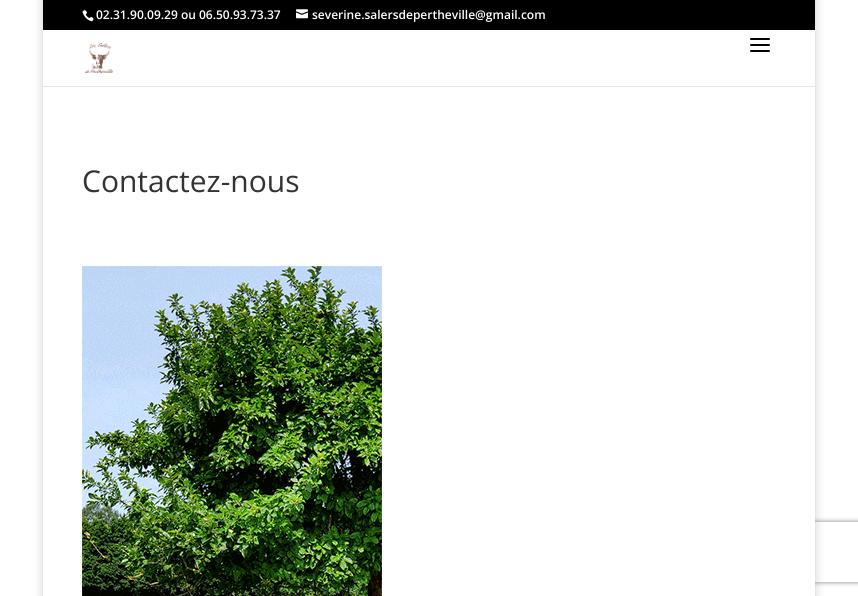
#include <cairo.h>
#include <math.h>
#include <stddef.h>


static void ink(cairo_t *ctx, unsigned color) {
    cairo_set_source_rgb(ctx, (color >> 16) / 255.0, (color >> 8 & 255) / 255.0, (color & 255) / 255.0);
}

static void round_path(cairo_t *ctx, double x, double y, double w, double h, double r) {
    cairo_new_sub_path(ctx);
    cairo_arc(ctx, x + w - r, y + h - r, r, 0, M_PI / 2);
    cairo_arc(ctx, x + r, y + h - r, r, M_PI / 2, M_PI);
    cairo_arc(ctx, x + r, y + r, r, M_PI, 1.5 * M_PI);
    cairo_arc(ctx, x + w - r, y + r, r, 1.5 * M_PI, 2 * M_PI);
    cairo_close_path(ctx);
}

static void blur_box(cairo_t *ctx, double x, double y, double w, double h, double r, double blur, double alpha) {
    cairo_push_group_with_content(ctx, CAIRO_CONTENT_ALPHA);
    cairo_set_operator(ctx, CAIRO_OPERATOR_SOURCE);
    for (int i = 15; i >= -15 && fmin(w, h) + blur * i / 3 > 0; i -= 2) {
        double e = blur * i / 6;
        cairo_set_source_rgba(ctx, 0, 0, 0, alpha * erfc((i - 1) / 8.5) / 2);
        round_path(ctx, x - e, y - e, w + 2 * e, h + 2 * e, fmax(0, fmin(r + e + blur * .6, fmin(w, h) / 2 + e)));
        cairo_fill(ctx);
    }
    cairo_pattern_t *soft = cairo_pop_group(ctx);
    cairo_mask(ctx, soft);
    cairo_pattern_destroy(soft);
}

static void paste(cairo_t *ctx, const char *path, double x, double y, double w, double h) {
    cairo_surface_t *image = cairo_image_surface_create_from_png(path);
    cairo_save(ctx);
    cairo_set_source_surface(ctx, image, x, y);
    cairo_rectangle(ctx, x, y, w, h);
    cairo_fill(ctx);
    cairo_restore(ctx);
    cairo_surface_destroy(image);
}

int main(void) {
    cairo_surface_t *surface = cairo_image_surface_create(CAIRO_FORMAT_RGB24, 858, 596);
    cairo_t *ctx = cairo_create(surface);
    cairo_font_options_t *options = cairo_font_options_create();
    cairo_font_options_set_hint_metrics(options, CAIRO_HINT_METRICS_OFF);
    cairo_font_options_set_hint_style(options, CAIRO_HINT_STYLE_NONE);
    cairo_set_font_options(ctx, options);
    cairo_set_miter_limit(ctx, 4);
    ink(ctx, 0xFFFFFF);
    cairo_paint(ctx);
    cairo_save(ctx);
    cairo_set_fill_rule(ctx, CAIRO_FILL_RULE_EVEN_ODD);
    cairo_new_path(ctx);
    cairo_move_to(ctx, 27, 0);
    cairo_line_to(ctx, 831, 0);
    cairo_line_to(ctx, 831, 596);
    cairo_line_to(ctx, 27, 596);
    cairo_close_path(ctx);
    cairo_move_to(ctx, 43, -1);
    cairo_line_to(ctx, 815, -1);
    cairo_line_to(ctx, 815, 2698);
    cairo_line_to(ctx, 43, 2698);
    cairo_close_path(ctx);
    cairo_clip(ctx);
    ink(ctx, 0x000000);
    blur_box(ctx, 43, -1, 772, 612, 0, 5, 0.2);
    cairo_restore(ctx);
    ink(ctx, 0x000000);
    cairo_rectangle(ctx, 43, 0, 772, 30);
    cairo_fill(ctx);
    paste(ctx, "media/1.png", 82, 10, 12, 12);
    cairo_select_font_face(ctx, "Open Sans SemiBold", CAIRO_FONT_SLANT_NORMAL, CAIRO_FONT_WEIGHT_NORMAL);
    cairo_set_font_size(ctx, 12);
    ink(ctx, 0xFFFFFF);
    cairo_move_to(ctx, 96, 19);
    cairo_show_text(ctx, "02.31.90.09.29 ou 06.50.93.73.37");
    paste(ctx, "media/2.png", 296, 9, 12, 10);
    cairo_move_to(ctx, 312, 19);
    cairo_show_text(ctx, "severine.salersdepertheville@gmail.com");
    ink(ctx, 0xE6E6E6);
    cairo_rectangle(ctx, 43, 86, 772, 1);
    cairo_fill(ctx);
    paste(ctx, "media/3.png", 85, 43, 28, 30);
    paste(ctx, "media/4.png", 750, 38, 20, 14);
    cairo_save(ctx);
    cairo_set_fill_rule(ctx, CAIRO_FILL_RULE_EVEN_ODD);
    cairo_new_path(ctx);
    cairo_move_to(ctx, 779, 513);
    cairo_line_to(ctx, 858, 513);
    cairo_line_to(ctx, 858, 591);
    cairo_line_to(ctx, 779, 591);
    cairo_close_path(ctx);
    cairo_move_to(ctx, 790, 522);
    cairo_line_to(ctx, 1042, 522);
    cairo_curve_to(ctx, 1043, 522, 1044, 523, 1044, 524);
    cairo_line_to(ctx, 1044, 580);
    cairo_curve_to(ctx, 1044, 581, 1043, 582, 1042, 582);
    cairo_line_to(ctx, 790, 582);
    cairo_curve_to(ctx, 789, 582, 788, 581, 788, 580);
    cairo_line_to(ctx, 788, 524);
    cairo_curve_to(ctx, 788, 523, 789, 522, 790, 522);
    cairo_close_path(ctx);
    cairo_clip(ctx);
    ink(ctx, 0x808080);
    blur_box(ctx, 788, 522, 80, 60, 2, 2.5, 1);
    cairo_restore(ctx);
    ink(ctx, 0xFFFFFF);
    cairo_rectangle(ctx, 783, 517, 32, 70);
    cairo_fill(ctx);
    cairo_select_font_face(ctx, "Open Sans", CAIRO_FONT_SLANT_NORMAL, CAIRO_FONT_WEIGHT_NORMAL);
    cairo_set_font_size(ctx, 30);
    ink(ctx, 0x333333);
    cairo_move_to(ctx, 82, 192);
    cairo_show_text(ctx, "Contactez-nous");
    paste(ctx, "media/5.png", 82, 266, 300, 330);
    cairo_surface_write_to_png(surface, "image.png");
    cairo_font_options_destroy(options);
    cairo_destroy(ctx);
    cairo_surface_destroy(surface);
    return 0;
}
